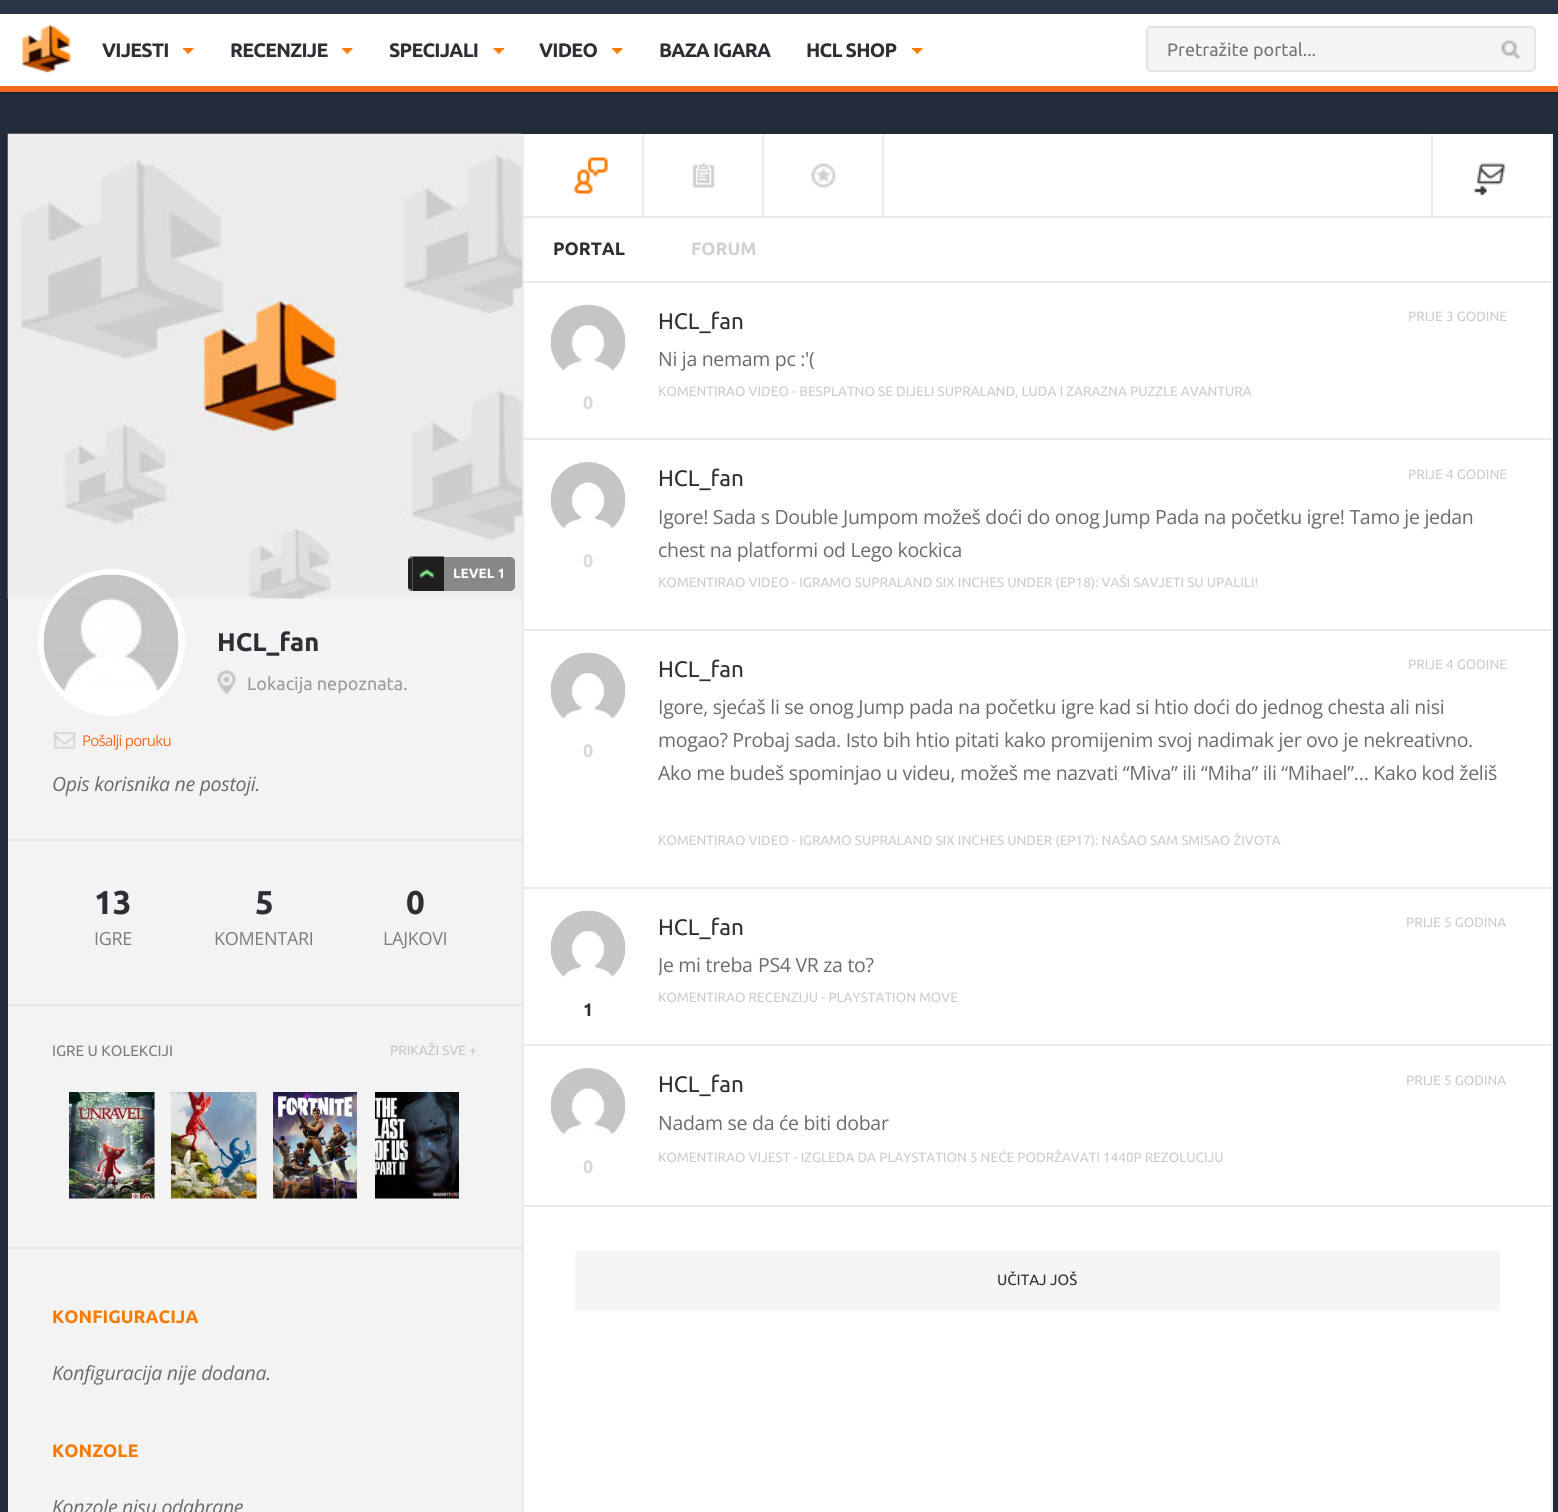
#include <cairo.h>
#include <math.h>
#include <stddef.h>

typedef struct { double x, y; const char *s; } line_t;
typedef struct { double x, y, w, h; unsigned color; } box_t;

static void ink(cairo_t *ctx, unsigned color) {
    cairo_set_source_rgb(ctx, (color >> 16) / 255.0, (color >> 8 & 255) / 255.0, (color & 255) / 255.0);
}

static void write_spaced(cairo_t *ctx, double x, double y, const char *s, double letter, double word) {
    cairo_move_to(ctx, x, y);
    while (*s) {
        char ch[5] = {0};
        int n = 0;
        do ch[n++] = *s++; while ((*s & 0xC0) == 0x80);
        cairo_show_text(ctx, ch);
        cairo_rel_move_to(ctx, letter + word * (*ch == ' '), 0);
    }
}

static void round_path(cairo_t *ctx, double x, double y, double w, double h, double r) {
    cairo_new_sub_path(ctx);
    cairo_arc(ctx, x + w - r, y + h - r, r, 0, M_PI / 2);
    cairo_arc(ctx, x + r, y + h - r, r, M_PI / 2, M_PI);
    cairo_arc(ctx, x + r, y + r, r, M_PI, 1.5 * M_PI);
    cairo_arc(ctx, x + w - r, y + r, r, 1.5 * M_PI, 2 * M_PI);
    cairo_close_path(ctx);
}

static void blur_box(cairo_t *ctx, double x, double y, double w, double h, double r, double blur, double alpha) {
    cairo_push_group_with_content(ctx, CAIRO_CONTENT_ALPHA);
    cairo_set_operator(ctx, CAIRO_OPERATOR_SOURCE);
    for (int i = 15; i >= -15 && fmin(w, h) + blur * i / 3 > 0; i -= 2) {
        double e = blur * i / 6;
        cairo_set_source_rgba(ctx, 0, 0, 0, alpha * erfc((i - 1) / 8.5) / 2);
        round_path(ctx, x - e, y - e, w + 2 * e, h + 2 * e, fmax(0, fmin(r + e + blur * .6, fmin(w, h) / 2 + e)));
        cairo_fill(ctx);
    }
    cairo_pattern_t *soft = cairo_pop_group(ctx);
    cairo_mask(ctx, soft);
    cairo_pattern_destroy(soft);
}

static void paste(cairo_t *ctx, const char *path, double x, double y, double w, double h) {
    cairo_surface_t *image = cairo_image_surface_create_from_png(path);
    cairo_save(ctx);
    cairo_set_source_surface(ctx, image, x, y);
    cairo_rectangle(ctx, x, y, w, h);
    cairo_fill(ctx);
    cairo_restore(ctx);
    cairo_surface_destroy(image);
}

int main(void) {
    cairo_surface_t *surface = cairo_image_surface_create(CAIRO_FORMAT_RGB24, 1558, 1512);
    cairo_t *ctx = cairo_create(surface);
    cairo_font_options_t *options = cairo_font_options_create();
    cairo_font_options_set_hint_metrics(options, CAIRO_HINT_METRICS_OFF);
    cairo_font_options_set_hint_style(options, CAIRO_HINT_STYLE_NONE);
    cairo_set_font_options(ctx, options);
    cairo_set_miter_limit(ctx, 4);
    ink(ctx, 0x222B3A);
    cairo_paint(ctx);
    ink(ctx, 0x000000);
    blur_box(ctx, 0, 15, 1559, 78, 0, 1, 0.3);
    {
        static const box_t items[] = {
            {0, 0, 1558, 14, 0x293446},
            {0, 14, 1558, 72, 0xFFFFFF},
            {0, 86, 1558, 6, 0xF4691D},
        };
        for (size_t i = 0; i < sizeof items / sizeof *items; i++) {
            ink(ctx, items[i].color);
            cairo_rectangle(ctx, items[i].x, items[i].y, items[i].w, items[i].h);
            cairo_fill(ctx);
        }
    }
    paste(ctx, "media/1.png", 22, 25, 49, 48);
    cairo_select_font_face(ctx, "Ubuntu", CAIRO_FONT_SLANT_NORMAL, CAIRO_FONT_WEIGHT_BOLD);
    cairo_set_font_size(ctx, 19.5);
    ink(ctx, 0x2E2F34);
    write_spaced(ctx, 102, 57, "VIJESTI", -0.75, 0);
    paste(ctx, "media/2.png", 183, 48, 11, 6);
    write_spaced(ctx, 230, 57, "RECENZIJE", -0.75, 0);
    paste(ctx, "media/3.png", 342, 48, 11, 6);
    write_spaced(ctx, 389, 57, "SPECIJALI", -0.75, 0);
    paste(ctx, "media/4.png", 493, 48, 11, 6);
    write_spaced(ctx, 539, 57, "VIDEO", -0.75, 0);
    paste(ctx, "media/2.png", 612, 48, 11, 6);
    write_spaced(ctx, 659, 57, "BAZA IGARA", -0.75, 0);
    write_spaced(ctx, 806, 57, "HCL SHOP", -0.75, 0);
    paste(ctx, "media/2.png", 912, 48, 11, 6);
    ink(ctx, 0xF5F5F5);
    round_path(ctx, 1147, 27, 388, 44, 4);
    cairo_fill_preserve(ctx);
    ink(ctx, 0xE4E4E4);
    cairo_stroke(ctx);
    cairo_select_font_face(ctx, "Ubuntu", CAIRO_FONT_SLANT_NORMAL, CAIRO_FONT_WEIGHT_NORMAL);
    cairo_set_font_size(ctx, 18);
    ink(ctx, 0x757575);
    cairo_move_to(ctx, 1167, 56);
    cairo_show_text(ctx, "Pretražite portal...");
    paste(ctx, "media/5.png", 1501, 40, 19, 19);
    ink(ctx, 0xF3F3F3);
    cairo_rectangle(ctx, 8, 134, 1545, 1378);
    cairo_fill(ctx);
    paste(ctx, "media/6.png", 7, 133, 515, 466);
    ink(ctx, 0x89FF87);
    cairo_rectangle(ctx, 419, 569, 15, 9);
    cairo_fill(ctx);
    paste(ctx, "media/7.png", 412, 556, 32, 35);
    paste(ctx, "media/8.png", 408, 556, 5, 35);
    ink(ctx, 0x888888);
    cairo_new_path(ctx);
    cairo_move_to(ctx, 444, 557);
    cairo_line_to(ctx, 510, 557);
    cairo_curve_to(ctx, 513, 557, 515, 559, 515, 562);
    cairo_line_to(ctx, 515, 586);
    cairo_curve_to(ctx, 515, 589, 513, 591, 510, 591);
    cairo_line_to(ctx, 444, 591);
    cairo_close_path(ctx);
    cairo_fill(ctx);
    cairo_select_font_face(ctx, "Ubuntu", CAIRO_FONT_SLANT_NORMAL, CAIRO_FONT_WEIGHT_BOLD);
    cairo_set_font_size(ctx, 13.5);
    ink(ctx, 0xFFFFFF);
    cairo_move_to(ctx, 453, 578);
    cairo_show_text(ctx, "LEVEL 1");
    ink(ctx, 0xE6E6E6);
    cairo_rectangle(ctx, 8, 839, 514, 2);
    cairo_fill(ctx);
    ink(ctx, 0xFFFFFF);
    cairo_arc(ctx, 111.5, 642.5, 73.5, 0, 2 * M_PI);
    cairo_fill(ctx);
    paste(ctx, "media/9.png", 43, 574, 136, 118);
    cairo_set_font_size(ctx, 25.5);
    ink(ctx, 0x2E2F34);
    cairo_move_to(ctx, 217, 651);
    cairo_show_text(ctx, "HCL_fan");
    paste(ctx, "media/10.png", 217, 670, 19, 25);
    cairo_select_font_face(ctx, "Ubuntu", CAIRO_FONT_SLANT_NORMAL, CAIRO_FONT_WEIGHT_NORMAL);
    cairo_set_font_size(ctx, 18);
    ink(ctx, 0x9A9A9A);
    cairo_move_to(ctx, 247, 690);
    cairo_show_text(ctx, "Lokacija nepoznata.");
    paste(ctx, "media/11.png", 53, 732, 23, 17);
    cairo_select_font_face(ctx, "Open Sans", CAIRO_FONT_SLANT_NORMAL, CAIRO_FONT_WEIGHT_NORMAL);
    cairo_set_font_size(ctx, 15);
    ink(ctx, 0xF4691D);
    write_spaced(ctx, 82, 746, "Pošalji poruku", -0.75, 0);
    cairo_select_font_face(ctx, "Open Sans", CAIRO_FONT_SLANT_ITALIC, CAIRO_FONT_WEIGHT_NORMAL);
    cairo_set_font_size(ctx, 19.5);
    ink(ctx, 0x6B6B6B);
    write_spaced(ctx, 52, 791, "Opis korisnika ne postoji.", -0.3, 0);
    ink(ctx, 0xE6E6E6);
    cairo_rectangle(ctx, 8, 1004, 514, 2);
    cairo_fill(ctx);
    cairo_select_font_face(ctx, "Ubuntu", CAIRO_FONT_SLANT_NORMAL, CAIRO_FONT_WEIGHT_BOLD);
    cairo_set_font_size(ctx, 33);
    ink(ctx, 0x2E2F34);
    cairo_move_to(ctx, 94, 914);
    cairo_show_text(ctx, "13");
    cairo_select_font_face(ctx, "Open Sans", CAIRO_FONT_SLANT_NORMAL, CAIRO_FONT_WEIGHT_NORMAL);
    cairo_set_font_size(ctx, 18);
    ink(ctx, 0x7C7C7E);
    write_spaced(ctx, 94, 945, "IGRE", -0.3, 0);
    cairo_select_font_face(ctx, "Ubuntu", CAIRO_FONT_SLANT_NORMAL, CAIRO_FONT_WEIGHT_BOLD);
    cairo_set_font_size(ctx, 33);
    ink(ctx, 0x2E2F34);
    cairo_move_to(ctx, 255, 914);
    cairo_show_text(ctx, "5");
    cairo_select_font_face(ctx, "Open Sans", CAIRO_FONT_SLANT_NORMAL, CAIRO_FONT_WEIGHT_NORMAL);
    cairo_set_font_size(ctx, 18);
    ink(ctx, 0x7C7C7E);
    write_spaced(ctx, 214, 945, "KOMENTARI", -0.3, 0);
    cairo_select_font_face(ctx, "Ubuntu", CAIRO_FONT_SLANT_NORMAL, CAIRO_FONT_WEIGHT_BOLD);
    cairo_set_font_size(ctx, 33);
    ink(ctx, 0x2E2F34);
    cairo_move_to(ctx, 406, 914);
    cairo_show_text(ctx, "0");
    cairo_select_font_face(ctx, "Open Sans", CAIRO_FONT_SLANT_NORMAL, CAIRO_FONT_WEIGHT_NORMAL);
    cairo_set_font_size(ctx, 18);
    ink(ctx, 0x7C7C7E);
    write_spaced(ctx, 383, 945, "LAJKOVI", -0.3, 0);
    ink(ctx, 0xE6E6E6);
    cairo_rectangle(ctx, 8, 1247, 514, 2);
    cairo_fill(ctx);
    cairo_select_font_face(ctx, "Ubuntu", CAIRO_FONT_SLANT_NORMAL, CAIRO_FONT_WEIGHT_NORMAL);
    cairo_set_font_size(ctx, 15);
    ink(ctx, 0x7C7C7E);
    cairo_move_to(ctx, 52, 1056);
    cairo_show_text(ctx, "IGRE U KOLEKCIJI");
    cairo_set_font_size(ctx, 13.5);
    ink(ctx, 0xC5C5C5);
    cairo_move_to(ctx, 390, 1055);
    cairo_show_text(ctx, "PRIKAŽI SVE +");
    paste(ctx, "media/12.png", 69, 1092, 86, 107);
    paste(ctx, "media/13.png", 171, 1092, 86, 107);
    paste(ctx, "media/14.png", 273, 1092, 84, 107);
    paste(ctx, "media/15.png", 375, 1092, 84, 107);
    cairo_select_font_face(ctx, "Ubuntu", CAIRO_FONT_SLANT_NORMAL, CAIRO_FONT_WEIGHT_BOLD);
    cairo_set_font_size(ctx, 18);
    ink(ctx, 0xF87A00);
    cairo_move_to(ctx, 52, 1323);
    cairo_show_text(ctx, "KONFIGURACIJA");
    cairo_select_font_face(ctx, "Open Sans", CAIRO_FONT_SLANT_ITALIC, CAIRO_FONT_WEIGHT_NORMAL);
    cairo_set_font_size(ctx, 19.5);
    ink(ctx, 0x6B6B6B);
    write_spaced(ctx, 52, 1380, "Konfiguracija nije dodana.", -0.3, 0);
    cairo_select_font_face(ctx, "Ubuntu", CAIRO_FONT_SLANT_NORMAL, CAIRO_FONT_WEIGHT_BOLD);
    cairo_set_font_size(ctx, 18);
    ink(ctx, 0xF87A00);
    cairo_move_to(ctx, 52, 1457);
    cairo_show_text(ctx, "KONZOLE");
    cairo_select_font_face(ctx, "Open Sans", CAIRO_FONT_SLANT_ITALIC, CAIRO_FONT_WEIGHT_NORMAL);
    cairo_set_font_size(ctx, 19.5);
    ink(ctx, 0x6B6B6B);
    write_spaced(ctx, 52, 1514, "Konzole nisu odabrane", -0.3, 0);
    {
        static const box_t items[] = {
            {524, 134, 1027, 1378, 0xFFFFFF},
            {522, 134, 2, 1378, 0xEAEAEA},
            {524, 216, 1027, 2, 0xEAEAEA},
            {642, 134, 2, 82, 0xEAEAEA},
        };
        for (size_t i = 0; i < sizeof items / sizeof *items; i++) {
            ink(ctx, items[i].color);
            cairo_rectangle(ctx, items[i].x, items[i].y, items[i].w, items[i].h);
            cairo_fill(ctx);
        }
    }
    paste(ctx, "media/16.png", 574, 157, 34, 37);
    cairo_rectangle(ctx, 762, 134, 2, 82);
    cairo_fill(ctx);
    paste(ctx, "media/17.png", 692, 163, 23, 25);
    cairo_rectangle(ctx, 882, 134, 2, 82);
    cairo_fill(ctx);
    paste(ctx, "media/18.png", 811, 163, 25, 25);
    cairo_rectangle(ctx, 1431, 134, 2, 82);
    cairo_fill(ctx);
    paste(ctx, "media/19.png", 1474, 163, 31, 32);
    cairo_rectangle(ctx, 524, 281, 1027, 2);
    cairo_fill(ctx);
    cairo_select_font_face(ctx, "Ubuntu", CAIRO_FONT_SLANT_NORMAL, CAIRO_FONT_WEIGHT_BOLD);
    cairo_set_font_size(ctx, 18);
    ink(ctx, 0x2E2F34);
    cairo_move_to(ctx, 553, 255);
    cairo_show_text(ctx, "PORTAL");
    ink(ctx, 0xD1D1D1);
    cairo_move_to(ctx, 691, 255);
    cairo_show_text(ctx, "FORUM");
    ink(ctx, 0xEAEAEA);
    cairo_rectangle(ctx, 524, 438, 1027, 2);
    cairo_fill(ctx);
    cairo_select_font_face(ctx, "Ubuntu", CAIRO_FONT_SLANT_NORMAL, CAIRO_FONT_WEIGHT_NORMAL);
    cairo_set_font_size(ctx, 22.5);
    ink(ctx, 0x2E2F34);
    cairo_move_to(ctx, 658, 329);
    cairo_show_text(ctx, "HCL_fan");
    cairo_set_font_size(ctx, 13.5);
    ink(ctx, 0xCBCBCB);
    cairo_move_to(ctx, 1408, 321);
    cairo_show_text(ctx, "PRIJE 3 GODINE");
    cairo_select_font_face(ctx, "Open Sans", CAIRO_FONT_SLANT_NORMAL, CAIRO_FONT_WEIGHT_NORMAL);
    cairo_set_font_size(ctx, 19.5);
    ink(ctx, 0x6B6B6B);
    write_spaced(ctx, 658, 366, "Ni ja nemam pc :'(", -0.3, 0);
    cairo_select_font_face(ctx, "Ubuntu", CAIRO_FONT_SLANT_NORMAL, CAIRO_FONT_WEIGHT_NORMAL);
    cairo_set_font_size(ctx, 13.5);
    ink(ctx, 0xCBCBCB);
    cairo_move_to(ctx, 658, 396);
    cairo_show_text(ctx, "KOMENTIRAO VIDEO - BESPLATNO SE DIJELI SUPRALAND, LUDA I ZARAZNA PUZZLE AVANTURA");
    paste(ctx, "media/20.png", 550, 304, 76, 67);
    cairo_select_font_face(ctx, "Ubuntu", CAIRO_FONT_SLANT_NORMAL, CAIRO_FONT_WEIGHT_BOLD);
    cairo_set_font_size(ctx, 18);
    ink(ctx, 0xD9D9D9);
    cairo_move_to(ctx, 583, 409);
    cairo_show_text(ctx, "0");
    ink(ctx, 0xEAEAEA);
    cairo_rectangle(ctx, 524, 629, 1027, 2);
    cairo_fill(ctx);
    paste(ctx, "media/21.png", 550, 462, 76, 66);
    ink(ctx, 0xD9D9D9);
    cairo_move_to(ctx, 583, 567);
    cairo_show_text(ctx, "0");
    cairo_select_font_face(ctx, "Ubuntu", CAIRO_FONT_SLANT_NORMAL, CAIRO_FONT_WEIGHT_NORMAL);
    cairo_set_font_size(ctx, 22.5);
    ink(ctx, 0x2E2F34);
    cairo_move_to(ctx, 658, 486);
    cairo_show_text(ctx, "HCL_fan");
    cairo_set_font_size(ctx, 13.5);
    ink(ctx, 0xCBCBCB);
    cairo_move_to(ctx, 1408, 479);
    cairo_show_text(ctx, "PRIJE 4 GODINE");
    cairo_select_font_face(ctx, "Open Sans", CAIRO_FONT_SLANT_NORMAL, CAIRO_FONT_WEIGHT_NORMAL);
    cairo_set_font_size(ctx, 19.5);
    ink(ctx, 0x6B6B6B);
    write_spaced(ctx, 658, 524, "Igore! Sada s Double Jumpom možeš doći do onog Jump Pada na početku igre! Tamo je jedan", -0.3, 0);
    write_spaced(ctx, 658, 557, "chest na platformi od Lego kockica", -0.3, 0);
    cairo_select_font_face(ctx, "Ubuntu", CAIRO_FONT_SLANT_NORMAL, CAIRO_FONT_WEIGHT_NORMAL);
    cairo_set_font_size(ctx, 13.5);
    ink(ctx, 0xCBCBCB);
    cairo_move_to(ctx, 658, 587);
    cairo_show_text(ctx, "KOMENTIRAO VIDEO - IGRAMO SUPRALAND SIX INCHES UNDER (EP18): VAŠI SAVJETI SU UPALILI!");
    ink(ctx, 0xEAEAEA);
    cairo_rectangle(ctx, 524, 887, 1027, 2);
    cairo_fill(ctx);
    paste(ctx, "media/20.png", 550, 652, 76, 67);
    cairo_select_font_face(ctx, "Ubuntu", CAIRO_FONT_SLANT_NORMAL, CAIRO_FONT_WEIGHT_BOLD);
    cairo_set_font_size(ctx, 18);
    ink(ctx, 0xD9D9D9);
    cairo_move_to(ctx, 583, 757);
    cairo_show_text(ctx, "0");
    cairo_select_font_face(ctx, "Ubuntu", CAIRO_FONT_SLANT_NORMAL, CAIRO_FONT_WEIGHT_NORMAL);
    cairo_set_font_size(ctx, 22.5);
    ink(ctx, 0x2E2F34);
    cairo_move_to(ctx, 658, 677);
    cairo_show_text(ctx, "HCL_fan");
    cairo_set_font_size(ctx, 13.5);
    ink(ctx, 0xCBCBCB);
    cairo_move_to(ctx, 1408, 669);
    cairo_show_text(ctx, "PRIJE 4 GODINE");
    cairo_select_font_face(ctx, "Open Sans", CAIRO_FONT_SLANT_NORMAL, CAIRO_FONT_WEIGHT_NORMAL);
    cairo_set_font_size(ctx, 19.5);
    ink(ctx, 0x6B6B6B);
    {
        static const line_t items[] = {
            {658, 714, "Igore, sjećaš li se onog Jump pada na početku igre kad si htio doći do jednog chesta ali nisi"},
            {658, 747, "mogao? Probaj sada. Isto bih htio pitati kako promijenim svoj nadimak jer ovo je nekreativno."},
            {658, 780, "Ako me budeš spominjao u videu, možeš me nazvati “Miva” ili “Miha” ili “Mihael”… Kako kod želiš"},
        };
        for (size_t i = 0; i < sizeof items / sizeof *items; i++) {
            write_spaced(ctx, items[i].x, items[i].y, items[i].s, -0.3, 0);
        }
    }
    cairo_select_font_face(ctx, "Ubuntu", CAIRO_FONT_SLANT_NORMAL, CAIRO_FONT_WEIGHT_NORMAL);
    cairo_set_font_size(ctx, 13.5);
    ink(ctx, 0xCBCBCB);
    cairo_move_to(ctx, 658, 845);
    cairo_show_text(ctx, "KOMENTIRAO VIDEO - IGRAMO SUPRALAND SIX INCHES UNDER (EP17): NAŠAO SAM SMISAO ŽIVOTA");
    ink(ctx, 0xEAEAEA);
    cairo_rectangle(ctx, 524, 1044, 1027, 2);
    cairo_fill(ctx);
    cairo_set_font_size(ctx, 22.5);
    ink(ctx, 0x2E2F34);
    cairo_move_to(ctx, 658, 935);
    cairo_show_text(ctx, "HCL_fan");
    cairo_set_font_size(ctx, 13.5);
    ink(ctx, 0xCBCBCB);
    cairo_move_to(ctx, 1406, 927);
    cairo_show_text(ctx, "PRIJE 5 GODINA");
    cairo_save(ctx);
    cairo_rectangle(ctx, 659, 915, 847, 99);
    cairo_clip(ctx);
    cairo_select_font_face(ctx, "Open Sans", CAIRO_FONT_SLANT_NORMAL, CAIRO_FONT_WEIGHT_NORMAL);
    cairo_set_font_size(ctx, 19.5);
    ink(ctx, 0x6B6B6B);
    write_spaced(ctx, 658, 972, "Je mi treba", -0.3, 0);
    cairo_restore(ctx);
    cairo_select_font_face(ctx, "Open Sans", CAIRO_FONT_SLANT_NORMAL, CAIRO_FONT_WEIGHT_NORMAL);
    cairo_set_font_size(ctx, 19.5);
    ink(ctx, 0x6B6B6B);
    write_spaced(ctx, 758, 972, "PS4 VR za to?", -0.3, 0);
    cairo_select_font_face(ctx, "Ubuntu", CAIRO_FONT_SLANT_NORMAL, CAIRO_FONT_WEIGHT_NORMAL);
    cairo_set_font_size(ctx, 13.5);
    ink(ctx, 0xCBCBCB);
    cairo_move_to(ctx, 658, 1002);
    cairo_show_text(ctx, "KOMENTIRAO RECENZIJU - PLAYSTATION MOVE");
    paste(ctx, "media/22.png", 550, 910, 76, 68);
    cairo_select_font_face(ctx, "Ubuntu", CAIRO_FONT_SLANT_NORMAL, CAIRO_FONT_WEIGHT_BOLD);
    cairo_set_font_size(ctx, 18);
    ink(ctx, 0x2E2F34);
    cairo_move_to(ctx, 583, 1016);
    cairo_show_text(ctx, "1");
    ink(ctx, 0xEAEAEA);
    cairo_rectangle(ctx, 524, 1205, 1027, 2);
    cairo_fill(ctx);
    cairo_select_font_face(ctx, "Ubuntu", CAIRO_FONT_SLANT_NORMAL, CAIRO_FONT_WEIGHT_NORMAL);
    cairo_set_font_size(ctx, 22.5);
    ink(ctx, 0x2E2F34);
    cairo_move_to(ctx, 658, 1092);
    cairo_show_text(ctx, "HCL_fan");
    cairo_set_font_size(ctx, 13.5);
    ink(ctx, 0xCBCBCB);
    cairo_move_to(ctx, 1406, 1085);
    cairo_show_text(ctx, "PRIJE 5 GODINA");
    cairo_select_font_face(ctx, "Open Sans", CAIRO_FONT_SLANT_NORMAL, CAIRO_FONT_WEIGHT_NORMAL);
    cairo_set_font_size(ctx, 19.5);
    ink(ctx, 0x6B6B6B);
    write_spaced(ctx, 658, 1130, "Nadam se da će biti dobar", -0.3, 0);
    cairo_select_font_face(ctx, "Ubuntu", CAIRO_FONT_SLANT_NORMAL, CAIRO_FONT_WEIGHT_NORMAL);
    cairo_set_font_size(ctx, 13.5);
    ink(ctx, 0xCBCBCB);
    cairo_move_to(ctx, 658, 1162);
    cairo_show_text(ctx, "KOMENTIRAO VIJEST - IZGLEDA DA PLAYSTATION 5 NEĆE PODRŽAVATI 1440P REZOLUCIJU");
    paste(ctx, "media/23.png", 550, 1068, 76, 66);
    cairo_select_font_face(ctx, "Ubuntu", CAIRO_FONT_SLANT_NORMAL, CAIRO_FONT_WEIGHT_BOLD);
    cairo_set_font_size(ctx, 18);
    ink(ctx, 0xD9D9D9);
    cairo_move_to(ctx, 583, 1173);
    cairo_show_text(ctx, "0");
    ink(ctx, 0xF5F5F5);
    cairo_rectangle(ctx, 575, 1251, 925, 60);
    cairo_fill(ctx);
    cairo_select_font_face(ctx, "Ubuntu", CAIRO_FONT_SLANT_NORMAL, CAIRO_FONT_WEIGHT_NORMAL);
    cairo_set_font_size(ctx, 15);
    ink(ctx, 0x2E2F34);
    cairo_move_to(ctx, 997, 1285);
    cairo_show_text(ctx, "UČITAJ JOŠ");
    cairo_surface_write_to_png(surface, "image.png");
    cairo_font_options_destroy(options);
    cairo_destroy(ctx);
    cairo_surface_destroy(surface);
    return 0;
}
